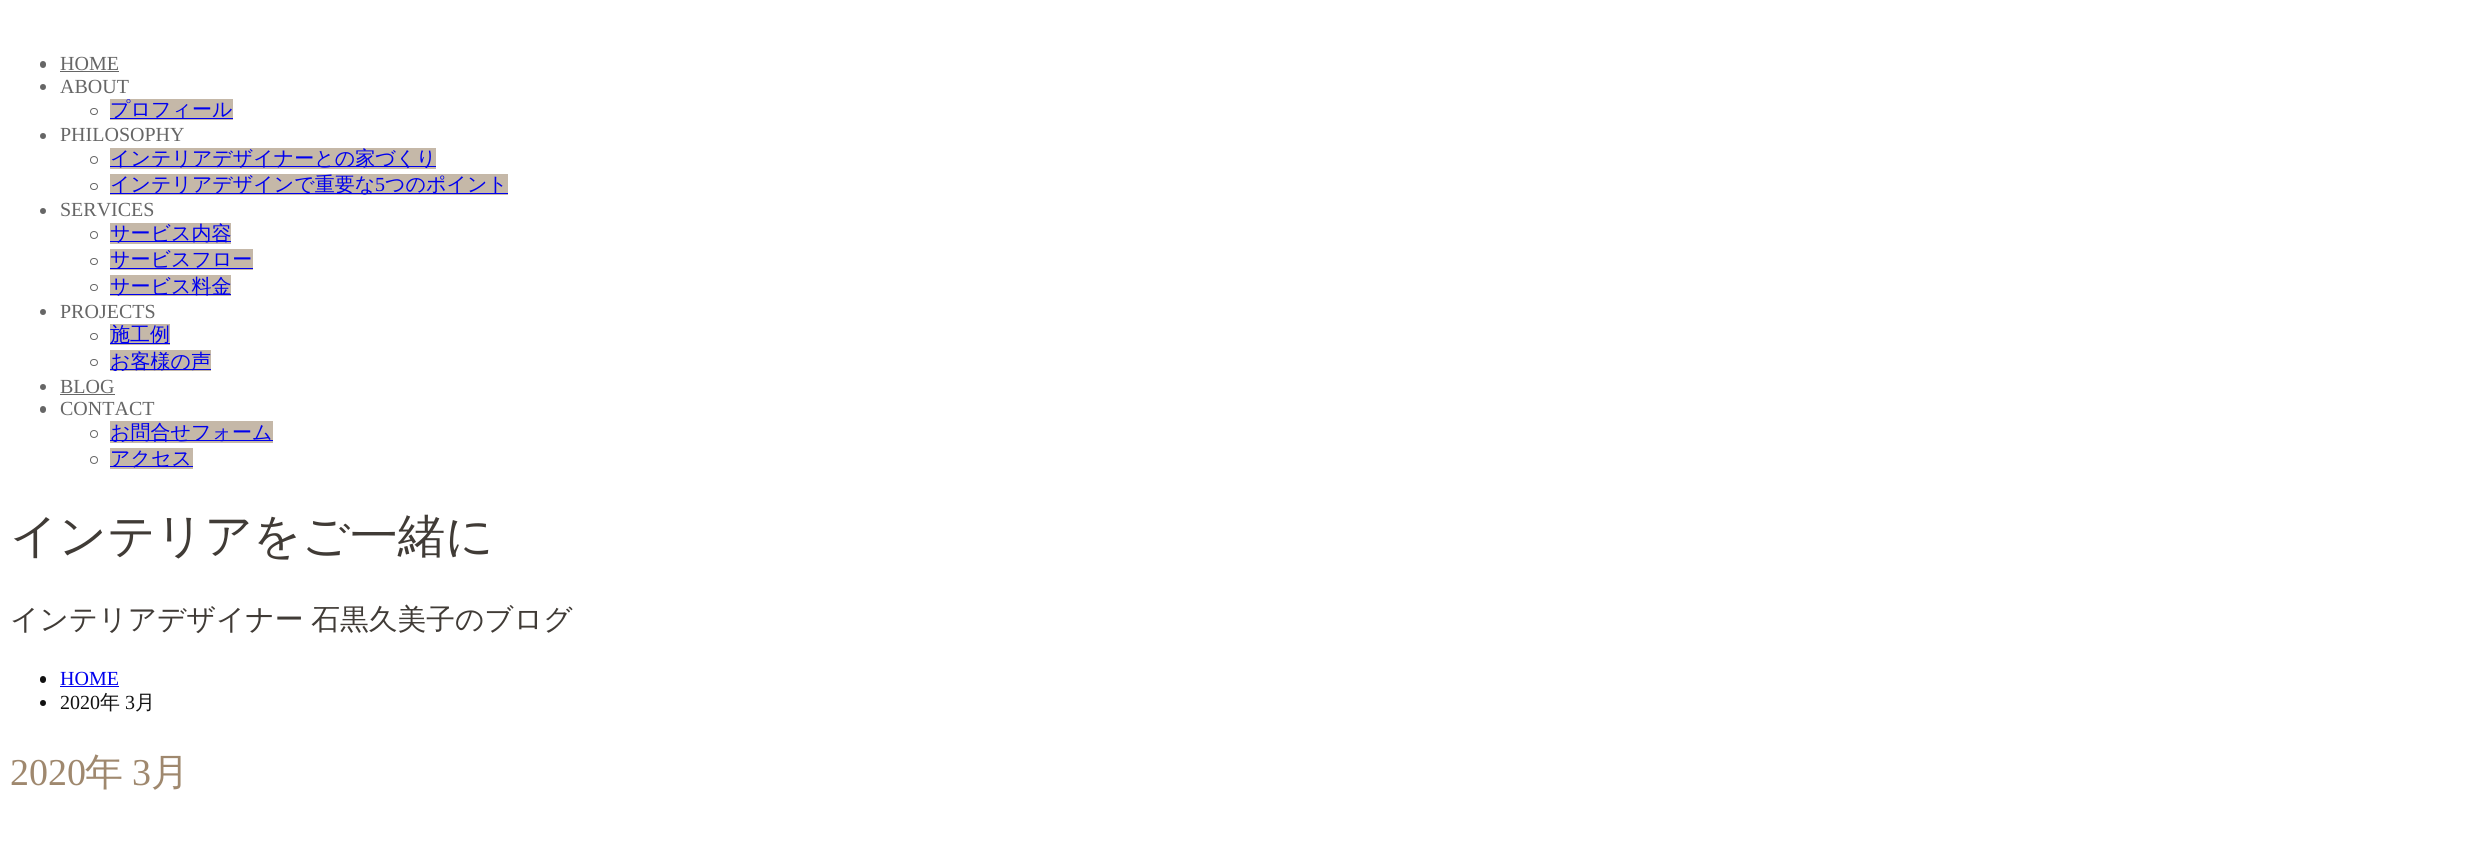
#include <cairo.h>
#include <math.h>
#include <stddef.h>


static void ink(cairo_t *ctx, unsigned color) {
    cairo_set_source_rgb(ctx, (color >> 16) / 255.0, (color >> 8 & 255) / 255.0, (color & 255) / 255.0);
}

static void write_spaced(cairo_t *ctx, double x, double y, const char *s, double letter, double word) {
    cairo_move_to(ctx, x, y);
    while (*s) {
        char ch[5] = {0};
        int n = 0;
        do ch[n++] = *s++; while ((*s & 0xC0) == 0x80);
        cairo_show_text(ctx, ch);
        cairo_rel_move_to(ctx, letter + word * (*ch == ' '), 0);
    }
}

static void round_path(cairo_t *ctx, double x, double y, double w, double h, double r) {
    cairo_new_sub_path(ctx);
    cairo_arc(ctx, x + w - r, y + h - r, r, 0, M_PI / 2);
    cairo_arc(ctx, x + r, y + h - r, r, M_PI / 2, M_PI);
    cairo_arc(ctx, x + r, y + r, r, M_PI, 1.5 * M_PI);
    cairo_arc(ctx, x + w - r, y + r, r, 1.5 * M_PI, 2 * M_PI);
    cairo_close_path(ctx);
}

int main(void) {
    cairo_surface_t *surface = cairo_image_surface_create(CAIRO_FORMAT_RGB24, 2467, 863);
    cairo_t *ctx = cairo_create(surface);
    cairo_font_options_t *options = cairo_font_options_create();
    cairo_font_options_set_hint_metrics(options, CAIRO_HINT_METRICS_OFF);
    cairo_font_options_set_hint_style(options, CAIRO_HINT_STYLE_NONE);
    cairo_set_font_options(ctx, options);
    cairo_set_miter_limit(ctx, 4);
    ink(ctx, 0xFFFFFF);
    cairo_paint(ctx);
    ink(ctx, 0x666666);
    round_path(ctx, 40, 61, 6, 7, 3);
    cairo_fill(ctx);
    cairo_select_font_face(ctx, "Liberation Serif", CAIRO_FONT_SLANT_NORMAL, CAIRO_FONT_WEIGHT_NORMAL);
    cairo_set_font_size(ctx, 20);
    cairo_move_to(ctx, 60, 70);
    cairo_show_text(ctx, "HOME");
    cairo_rectangle(ctx, 60, 71, 59, 1);
    cairo_fill(ctx);
    cairo_arc(ctx, 43, 87, 3, 0, 2 * M_PI);
    cairo_fill(ctx);
    cairo_move_to(ctx, 60, 93);
    cairo_show_text(ctx, "ABOUT");
    round_path(ctx, 90.5, 108.5, 7, 6, 3);
    cairo_set_line_width(ctx, 1);
    cairo_stroke(ctx);
    ink(ctx, 0xC5B8A8);
    cairo_rectangle(ctx, 110, 99, 123, 21);
    cairo_fill(ctx);
    ink(ctx, 0x0000EE);
    cairo_rectangle(ctx, 110, 118, 123, 1);
    cairo_fill(ctx);
    cairo_select_font_face(ctx, "WenQuanYi Zen Hei Medium", CAIRO_FONT_SLANT_NORMAL, CAIRO_FONT_WEIGHT_NORMAL);
    cairo_move_to(ctx, 110, 116);
    cairo_show_text(ctx, "プロフィール");
    ink(ctx, 0x666666);
    cairo_new_path(ctx);
    cairo_arc(ctx, 43, 136, 3, 0, 2 * M_PI);
    cairo_fill(ctx);
    cairo_select_font_face(ctx, "Liberation Serif", CAIRO_FONT_SLANT_NORMAL, CAIRO_FONT_WEIGHT_NORMAL);
    cairo_move_to(ctx, 60, 141);
    cairo_show_text(ctx, "PHILOSOPHY");
    cairo_new_path(ctx);
    cairo_arc(ctx, 94, 160, 3.5, 0, 2 * M_PI);
    cairo_stroke(ctx);
    ink(ctx, 0xC5B8A8);
    cairo_rectangle(ctx, 110, 148, 326, 21);
    cairo_fill(ctx);
    ink(ctx, 0x0000EE);
    cairo_rectangle(ctx, 110, 166, 326, 1);
    cairo_fill(ctx);
    cairo_select_font_face(ctx, "WenQuanYi Zen Hei Medium", CAIRO_FONT_SLANT_NORMAL, CAIRO_FONT_WEIGHT_NORMAL);
    cairo_move_to(ctx, 110, 165);
    cairo_show_text(ctx, "インテリアデザイナーとの家づくり");
    round_path(ctx, 90.5, 183.5, 7, 6, 3);
    ink(ctx, 0x666666);
    cairo_stroke(ctx);
    ink(ctx, 0xC5B8A8);
    cairo_rectangle(ctx, 110, 174, 398, 21);
    cairo_fill(ctx);
    ink(ctx, 0x0000EE);
    cairo_rectangle(ctx, 110, 193, 398, 1);
    cairo_fill(ctx);
    cairo_move_to(ctx, 110, 191);
    cairo_show_text(ctx, "インテリアデザインで重要な");
    cairo_select_font_face(ctx, "Liberation Serif", CAIRO_FONT_SLANT_NORMAL, CAIRO_FONT_WEIGHT_NORMAL);
    cairo_move_to(ctx, 375, 191);
    cairo_show_text(ctx, "5");
    cairo_select_font_face(ctx, "WenQuanYi Zen Hei Medium", CAIRO_FONT_SLANT_NORMAL, CAIRO_FONT_WEIGHT_NORMAL);
    cairo_move_to(ctx, 385, 191);
    cairo_show_text(ctx, "つのポイント");
    ink(ctx, 0x666666);
    cairo_new_path(ctx);
    cairo_arc(ctx, 43, 211, 3, 0, 2 * M_PI);
    cairo_fill(ctx);
    cairo_select_font_face(ctx, "Liberation Serif", CAIRO_FONT_SLANT_NORMAL, CAIRO_FONT_WEIGHT_NORMAL);
    cairo_move_to(ctx, 60, 216);
    cairo_show_text(ctx, "SERVICES");
    cairo_new_path(ctx);
    cairo_arc(ctx, 94, 235, 3.5, 0, 2 * M_PI);
    cairo_stroke(ctx);
    ink(ctx, 0xC5B8A8);
    cairo_rectangle(ctx, 110, 223, 121, 21);
    cairo_fill(ctx);
    ink(ctx, 0x0000EE);
    cairo_rectangle(ctx, 110, 241, 121, 1);
    cairo_fill(ctx);
    cairo_select_font_face(ctx, "WenQuanYi Zen Hei Medium", CAIRO_FONT_SLANT_NORMAL, CAIRO_FONT_WEIGHT_NORMAL);
    cairo_move_to(ctx, 110, 240);
    cairo_show_text(ctx, "サービス内容");
    round_path(ctx, 90.5, 258.5, 7, 6, 3);
    ink(ctx, 0x666666);
    cairo_stroke(ctx);
    ink(ctx, 0xC5B8A8);
    cairo_rectangle(ctx, 110, 249, 143, 21);
    cairo_fill(ctx);
    ink(ctx, 0x0000EE);
    cairo_rectangle(ctx, 110, 268, 143, 1);
    cairo_fill(ctx);
    cairo_move_to(ctx, 110, 266);
    cairo_show_text(ctx, "サービスフロー");
    round_path(ctx, 90.5, 284.5, 7, 6, 3);
    ink(ctx, 0x666666);
    cairo_stroke(ctx);
    ink(ctx, 0xC5B8A8);
    cairo_rectangle(ctx, 110, 275, 121, 21);
    cairo_fill(ctx);
    ink(ctx, 0x0000EE);
    cairo_rectangle(ctx, 110, 294, 121, 1);
    cairo_fill(ctx);
    cairo_move_to(ctx, 110, 293);
    cairo_show_text(ctx, "サービス料金");
    ink(ctx, 0x666666);
    cairo_new_path(ctx);
    cairo_arc(ctx, 43, 312, 3, 0, 2 * M_PI);
    cairo_fill(ctx);
    cairo_select_font_face(ctx, "Liberation Serif", CAIRO_FONT_SLANT_NORMAL, CAIRO_FONT_WEIGHT_NORMAL);
    cairo_move_to(ctx, 60, 318);
    cairo_show_text(ctx, "PROJECTS");
    round_path(ctx, 90.5, 333.5, 7, 6, 3);
    cairo_stroke(ctx);
    ink(ctx, 0xC5B8A8);
    cairo_rectangle(ctx, 110, 324, 60, 21);
    cairo_fill(ctx);
    ink(ctx, 0x0000EE);
    cairo_rectangle(ctx, 110, 343, 60, 1);
    cairo_fill(ctx);
    cairo_select_font_face(ctx, "WenQuanYi Zen Hei Medium", CAIRO_FONT_SLANT_NORMAL, CAIRO_FONT_WEIGHT_NORMAL);
    cairo_move_to(ctx, 110, 341);
    cairo_show_text(ctx, "施工例");
    round_path(ctx, 90.5, 359.5, 7, 6, 3);
    ink(ctx, 0x666666);
    cairo_stroke(ctx);
    ink(ctx, 0xC5B8A8);
    cairo_rectangle(ctx, 110, 350, 101, 21);
    cairo_fill(ctx);
    ink(ctx, 0x0000EE);
    cairo_rectangle(ctx, 110, 369, 101, 1);
    cairo_fill(ctx);
    cairo_move_to(ctx, 110, 368);
    cairo_show_text(ctx, "お客様の声");
    ink(ctx, 0x666666);
    cairo_new_path(ctx);
    cairo_arc(ctx, 43, 387, 3, 0, 2 * M_PI);
    cairo_fill(ctx);
    cairo_select_font_face(ctx, "Liberation Serif", CAIRO_FONT_SLANT_NORMAL, CAIRO_FONT_WEIGHT_NORMAL);
    cairo_move_to(ctx, 60, 393);
    cairo_show_text(ctx, "BLOG");
    cairo_rectangle(ctx, 60, 394, 55, 1);
    cairo_fill(ctx);
    round_path(ctx, 40, 406, 6, 7, 3);
    cairo_fill(ctx);
    cairo_move_to(ctx, 60, 415);
    cairo_show_text(ctx, "CONTACT");
    cairo_new_path(ctx);
    cairo_arc(ctx, 94, 434, 3.5, 0, 2 * M_PI);
    cairo_stroke(ctx);
    ink(ctx, 0xC5B8A8);
    cairo_rectangle(ctx, 110, 421, 163, 22);
    cairo_fill(ctx);
    ink(ctx, 0x0000EE);
    cairo_rectangle(ctx, 110, 440, 163, 1);
    cairo_fill(ctx);
    cairo_select_font_face(ctx, "WenQuanYi Zen Hei Medium", CAIRO_FONT_SLANT_NORMAL, CAIRO_FONT_WEIGHT_NORMAL);
    cairo_move_to(ctx, 110, 439);
    cairo_show_text(ctx, "お問合せフォーム");
    cairo_new_path(ctx);
    cairo_arc(ctx, 94, 460, 3.5, 0, 2 * M_PI);
    ink(ctx, 0x666666);
    cairo_stroke(ctx);
    ink(ctx, 0xC5B8A8);
    cairo_rectangle(ctx, 110, 448, 83, 21);
    cairo_fill(ctx);
    ink(ctx, 0x0000EE);
    cairo_rectangle(ctx, 110, 466, 83, 1);
    cairo_fill(ctx);
    cairo_move_to(ctx, 110, 465);
    cairo_show_text(ctx, "アクセス");
    cairo_set_font_size(ctx, 47.5);
    ink(ctx, 0x403B36);
    cairo_move_to(ctx, 10, 552);
    cairo_show_text(ctx, "インテリアをご一緒に");
    cairo_set_font_size(ctx, 28.75);
    write_spaced(ctx, 10, 629, "インテリアデザイナー 石黒久美子のブログ", 0, -1);
    ink(ctx, 0x111111);
    round_path(ctx, 40, 676, 6, 7, 3);
    cairo_fill(ctx);
    cairo_select_font_face(ctx, "Liberation Serif", CAIRO_FONT_SLANT_NORMAL, CAIRO_FONT_WEIGHT_NORMAL);
    cairo_set_font_size(ctx, 20);
    ink(ctx, 0x0000EE);
    cairo_move_to(ctx, 60, 685);
    cairo_show_text(ctx, "HOME");
    cairo_rectangle(ctx, 60, 686, 59, 1);
    cairo_fill(ctx);
    ink(ctx, 0x111111);
    cairo_arc(ctx, 43, 703, 3, 0, 2 * M_PI);
    cairo_fill(ctx);
    cairo_move_to(ctx, 60, 709);
    cairo_show_text(ctx, "2020");
    cairo_select_font_face(ctx, "WenQuanYi Zen Hei Medium", CAIRO_FONT_SLANT_NORMAL, CAIRO_FONT_WEIGHT_NORMAL);
    cairo_move_to(ctx, 100, 709);
    cairo_show_text(ctx, "年");
    cairo_select_font_face(ctx, "Liberation Serif", CAIRO_FONT_SLANT_NORMAL, CAIRO_FONT_WEIGHT_NORMAL);
    cairo_move_to(ctx, 125, 709);
    cairo_show_text(ctx, "3");
    cairo_select_font_face(ctx, "WenQuanYi Zen Hei Medium", CAIRO_FONT_SLANT_NORMAL, CAIRO_FONT_WEIGHT_NORMAL);
    cairo_move_to(ctx, 135, 709);
    cairo_show_text(ctx, "月");
    cairo_select_font_face(ctx, "Liberation Serif", CAIRO_FONT_SLANT_NORMAL, CAIRO_FONT_WEIGHT_NORMAL);
    cairo_set_font_size(ctx, 38);
    ink(ctx, 0x9F886E);
    cairo_move_to(ctx, 10, 785);
    cairo_show_text(ctx, "2020");
    cairo_select_font_face(ctx, "WenQuanYi Zen Hei Medium", CAIRO_FONT_SLANT_NORMAL, CAIRO_FONT_WEIGHT_NORMAL);
    cairo_move_to(ctx, 85, 785);
    cairo_show_text(ctx, "年");
    cairo_select_font_face(ctx, "Liberation Serif", CAIRO_FONT_SLANT_NORMAL, CAIRO_FONT_WEIGHT_NORMAL);
    cairo_move_to(ctx, 132, 785);
    cairo_show_text(ctx, "3");
    cairo_select_font_face(ctx, "WenQuanYi Zen Hei Medium", CAIRO_FONT_SLANT_NORMAL, CAIRO_FONT_WEIGHT_NORMAL);
    cairo_move_to(ctx, 151, 785);
    cairo_show_text(ctx, "月");
    cairo_surface_write_to_png(surface, "image.png");
    cairo_font_options_destroy(options);
    cairo_destroy(ctx);
    cairo_surface_destroy(surface);
    return 0;
}
